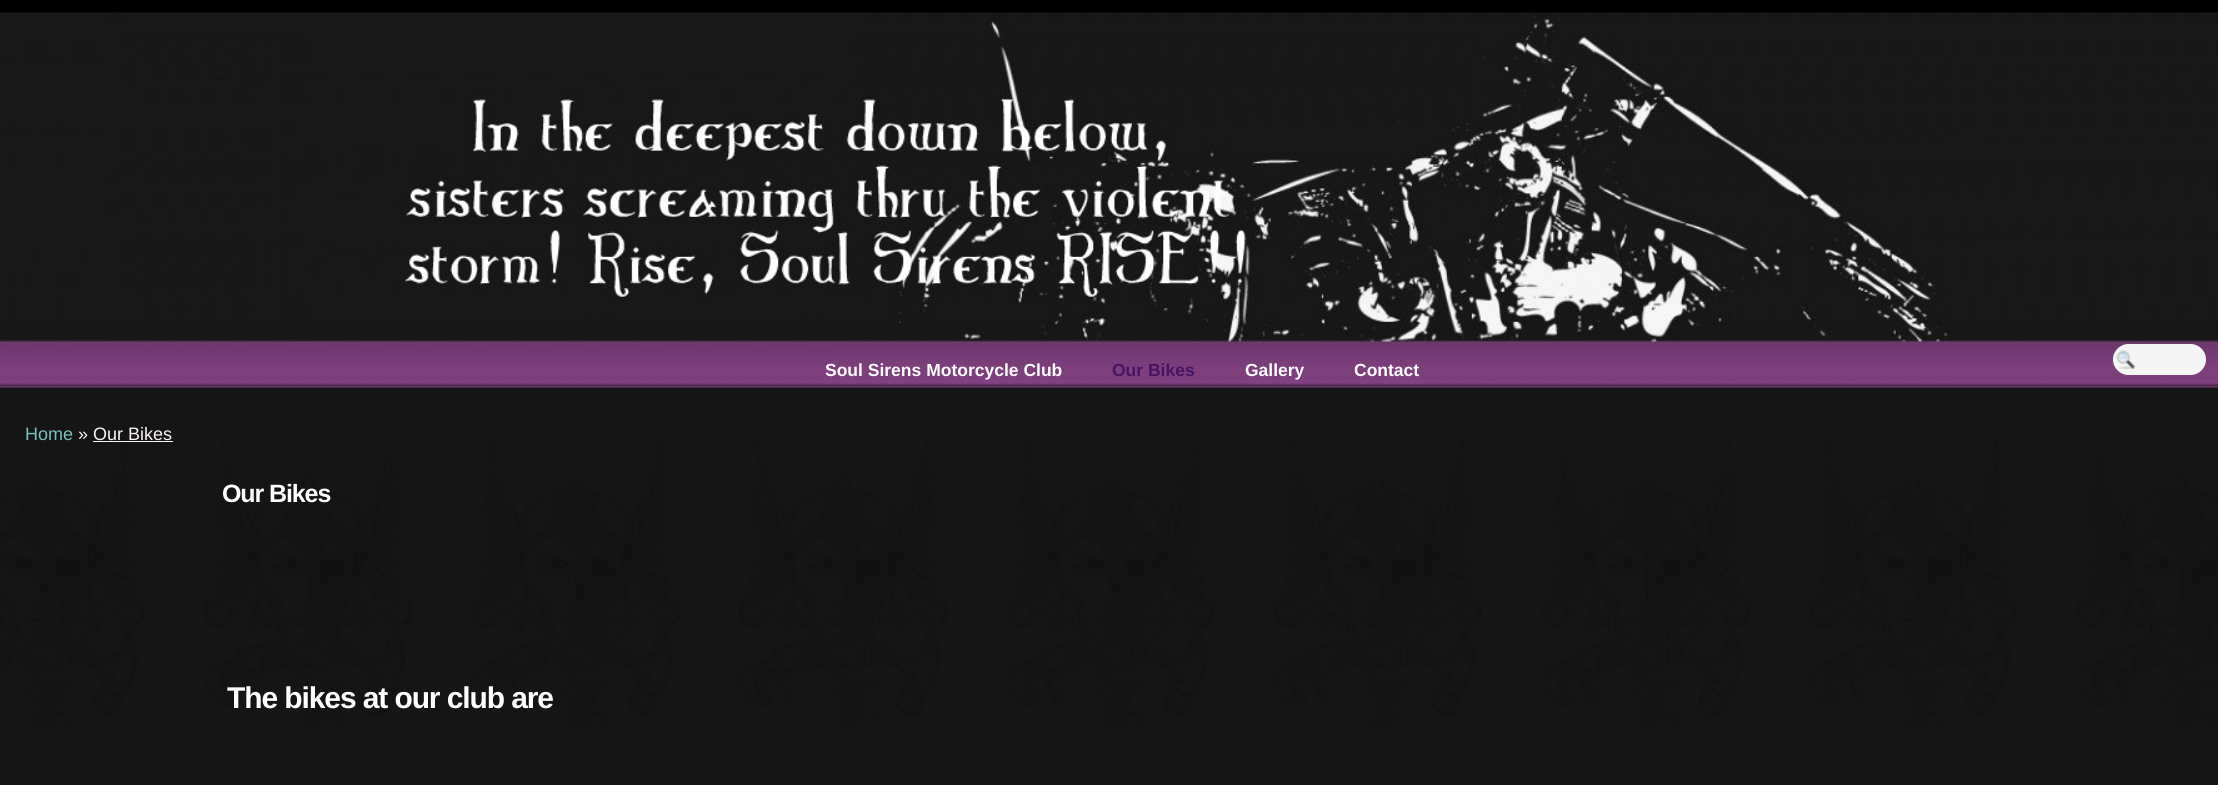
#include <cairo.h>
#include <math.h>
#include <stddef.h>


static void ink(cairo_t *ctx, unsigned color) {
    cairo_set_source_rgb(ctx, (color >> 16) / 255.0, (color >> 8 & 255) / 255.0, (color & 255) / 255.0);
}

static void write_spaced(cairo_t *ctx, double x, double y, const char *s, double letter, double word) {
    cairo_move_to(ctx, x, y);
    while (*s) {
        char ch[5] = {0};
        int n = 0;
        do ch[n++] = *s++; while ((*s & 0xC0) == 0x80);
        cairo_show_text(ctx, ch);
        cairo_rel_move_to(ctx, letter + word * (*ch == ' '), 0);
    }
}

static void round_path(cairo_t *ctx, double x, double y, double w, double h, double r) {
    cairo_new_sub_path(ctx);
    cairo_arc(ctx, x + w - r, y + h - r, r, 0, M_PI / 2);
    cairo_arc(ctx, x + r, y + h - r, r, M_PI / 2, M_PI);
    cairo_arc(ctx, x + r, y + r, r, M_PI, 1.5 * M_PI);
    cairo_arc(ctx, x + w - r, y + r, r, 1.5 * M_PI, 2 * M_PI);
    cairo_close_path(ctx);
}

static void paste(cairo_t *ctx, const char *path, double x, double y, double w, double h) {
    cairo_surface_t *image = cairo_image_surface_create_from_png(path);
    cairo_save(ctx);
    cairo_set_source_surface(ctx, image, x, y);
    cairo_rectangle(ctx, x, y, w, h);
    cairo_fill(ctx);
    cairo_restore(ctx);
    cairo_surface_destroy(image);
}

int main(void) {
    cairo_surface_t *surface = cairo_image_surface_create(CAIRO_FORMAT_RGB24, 2218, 785);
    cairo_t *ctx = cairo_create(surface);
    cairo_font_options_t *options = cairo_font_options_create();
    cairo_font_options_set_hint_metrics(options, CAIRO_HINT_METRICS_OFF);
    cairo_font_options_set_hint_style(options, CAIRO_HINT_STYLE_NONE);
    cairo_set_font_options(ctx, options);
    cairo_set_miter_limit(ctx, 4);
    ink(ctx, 0x000000);
    cairo_paint(ctx);
    paste(ctx, "media/1.png", 0, 12, 2218, 773);
    paste(ctx, "media/2.png", 0, 12, 2218, 376);
    paste(ctx, "media/3.png", 0, 371, 2218, 17);
    cairo_select_font_face(ctx, "Liberation Sans", CAIRO_FONT_SLANT_NORMAL, CAIRO_FONT_WEIGHT_BOLD);
    cairo_set_font_size(ctx, 17.5);
    ink(ctx, 0xFFFFFF);
    cairo_move_to(ctx, 825, 376);
    cairo_show_text(ctx, "Soul Sirens Motorcycle Club");
    ink(ctx, 0x451561);
    cairo_move_to(ctx, 1112, 376);
    cairo_show_text(ctx, "Our Bikes");
    ink(ctx, 0xFFFFFF);
    cairo_move_to(ctx, 1245, 376);
    cairo_show_text(ctx, "Gallery");
    cairo_move_to(ctx, 1354, 376);
    cairo_show_text(ctx, "Contact");
    ink(ctx, 0xF5F5F5);
    round_path(ctx, 2113, 344, 93, 31, 15.5);
    cairo_fill(ctx);
    paste(ctx, "media/4.png", 2116, 350, 20, 19);
    cairo_select_font_face(ctx, "Liberation Sans", CAIRO_FONT_SLANT_NORMAL, CAIRO_FONT_WEIGHT_NORMAL);
    cairo_set_font_size(ctx, 18);
    ink(ctx, 0x78BFBF);
    cairo_move_to(ctx, 25, 440);
    cairo_show_text(ctx, "Home");
    ink(ctx, 0xF9F3F9);
    cairo_move_to(ctx, 78, 440);
    cairo_show_text(ctx, "» Our Bikes");
    cairo_rectangle(ctx, 93, 441, 80, 1);
    cairo_fill(ctx);
    cairo_select_font_face(ctx, "Liberation Sans", CAIRO_FONT_SLANT_NORMAL, CAIRO_FONT_WEIGHT_BOLD);
    cairo_set_font_size(ctx, 25);
    ink(ctx, 0xFFFFFF);
    write_spaced(ctx, 222, 502, "Our Bikes", -1.1, 0);
    cairo_set_font_size(ctx, 30);
    write_spaced(ctx, 227, 708, "The bikes at our club are", -1.1, 0);
    cairo_surface_write_to_png(surface, "image.png");
    cairo_font_options_destroy(options);
    cairo_destroy(ctx);
    cairo_surface_destroy(surface);
    return 0;
}
